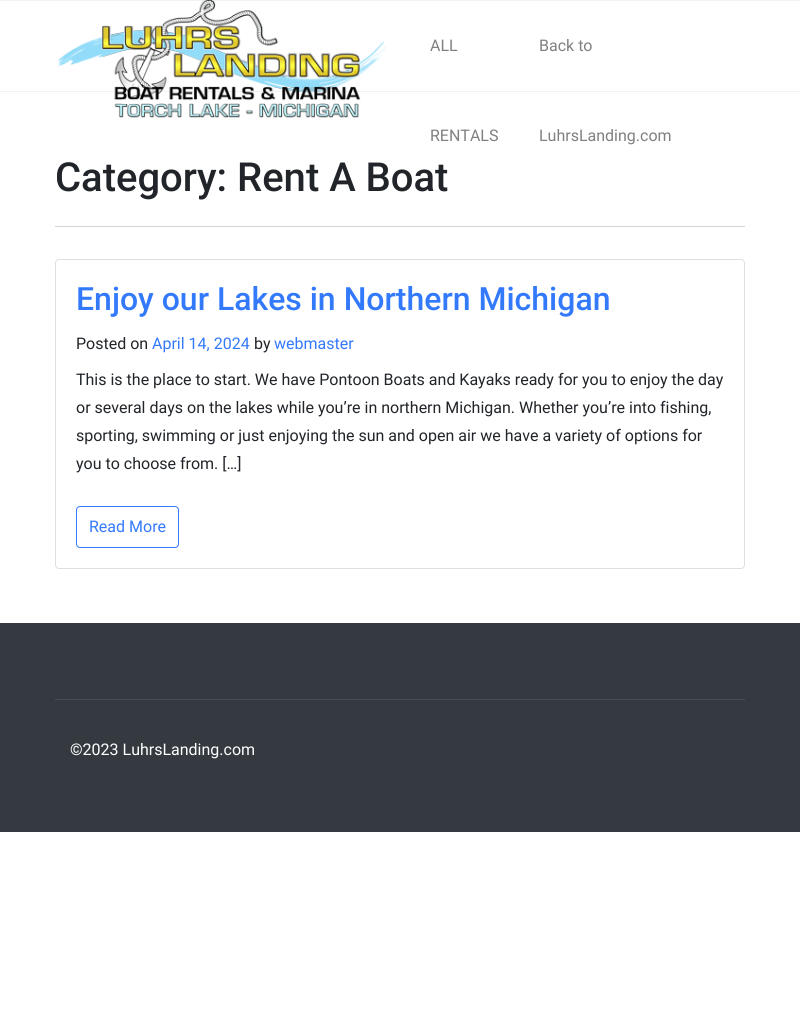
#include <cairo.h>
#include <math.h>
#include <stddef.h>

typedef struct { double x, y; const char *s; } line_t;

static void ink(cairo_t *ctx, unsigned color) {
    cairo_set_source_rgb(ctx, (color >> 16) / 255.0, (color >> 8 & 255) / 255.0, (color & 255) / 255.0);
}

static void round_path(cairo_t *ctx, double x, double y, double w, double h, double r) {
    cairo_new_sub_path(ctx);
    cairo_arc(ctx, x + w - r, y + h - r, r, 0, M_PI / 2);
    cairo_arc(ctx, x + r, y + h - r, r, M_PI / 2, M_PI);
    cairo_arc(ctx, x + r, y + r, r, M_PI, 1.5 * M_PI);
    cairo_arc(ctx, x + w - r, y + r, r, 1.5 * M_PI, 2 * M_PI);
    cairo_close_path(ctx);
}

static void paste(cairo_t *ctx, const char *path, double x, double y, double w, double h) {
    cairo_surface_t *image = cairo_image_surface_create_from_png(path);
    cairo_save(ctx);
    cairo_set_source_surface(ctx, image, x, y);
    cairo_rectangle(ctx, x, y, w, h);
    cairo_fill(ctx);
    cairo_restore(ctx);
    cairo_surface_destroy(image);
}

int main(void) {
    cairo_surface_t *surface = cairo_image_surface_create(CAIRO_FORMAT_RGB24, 800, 1014);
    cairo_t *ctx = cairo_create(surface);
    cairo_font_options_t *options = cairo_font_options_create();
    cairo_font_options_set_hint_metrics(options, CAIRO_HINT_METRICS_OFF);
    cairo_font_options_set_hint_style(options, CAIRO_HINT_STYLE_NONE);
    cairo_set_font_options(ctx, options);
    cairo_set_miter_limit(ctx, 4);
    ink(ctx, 0xFFFFFF);
    cairo_paint(ctx);
    ink(ctx, 0xF0F2F7);
    cairo_rectangle(ctx, 0, 0, 800, 1);
    cairo_fill(ctx);
    cairo_rectangle(ctx, 0, 91, 800, 1);
    cairo_fill(ctx);
    paste(ctx, "media/1.png", 58, 0, 328, 118);
    cairo_select_font_face(ctx, "Roboto", CAIRO_FONT_SLANT_NORMAL, CAIRO_FONT_WEIGHT_NORMAL);
    cairo_set_font_size(ctx, 16);
    ink(ctx, 0x808080);
    {
        static const line_t items[] = {
            {430, 51, "ALL"},
            {430, 141, "RENTALS"},
            {539, 51, "Back to"},
            {539, 141, "LuhrsLanding.com"},
        };
        for (size_t i = 0; i < sizeof items / sizeof *items; i++) {
            cairo_move_to(ctx, items[i].x, items[i].y);
            cairo_show_text(ctx, items[i].s);
        }
    }
    ink(ctx, 0xCED4DA);
    cairo_rectangle(ctx, 55, 226, 690, 1);
    cairo_fill(ctx);
    cairo_select_font_face(ctx, "Roboto Medium", CAIRO_FONT_SLANT_NORMAL, CAIRO_FONT_WEIGHT_NORMAL);
    cairo_set_font_size(ctx, 40);
    ink(ctx, 0x212529);
    cairo_move_to(ctx, 55, 191);
    cairo_show_text(ctx, "Category: Rent A Boat");
    round_path(ctx, 55.5, 259.5, 689, 309, 3.5);
    ink(ctx, 0xDFDFDF);
    cairo_set_line_width(ctx, 1);
    cairo_stroke(ctx);
    cairo_set_font_size(ctx, 32);
    ink(ctx, 0x3379FC);
    cairo_move_to(ctx, 76, 310);
    cairo_show_text(ctx, "Enjoy our Lakes in Northern Michigan");
    cairo_select_font_face(ctx, "Roboto", CAIRO_FONT_SLANT_NORMAL, CAIRO_FONT_WEIGHT_NORMAL);
    cairo_set_font_size(ctx, 16);
    ink(ctx, 0x212529);
    cairo_move_to(ctx, 76, 349);
    cairo_show_text(ctx, "Posted on");
    ink(ctx, 0x3379FC);
    cairo_move_to(ctx, 152, 349);
    cairo_show_text(ctx, "April 14, 2024");
    ink(ctx, 0x212529);
    cairo_move_to(ctx, 254, 349);
    cairo_show_text(ctx, "by");
    ink(ctx, 0x3379FC);
    cairo_move_to(ctx, 274, 349);
    cairo_show_text(ctx, "webmaster");
    ink(ctx, 0x212529);
    {
        static const line_t items[] = {
            {76, 385, "This is the place to start. We have Pontoon Boats and Kayaks ready for you to enjoy the day"},
            {76, 413, "or several days on the lakes while you’re in northern Michigan. Whether you’re into fishing,"},
            {76, 441, "sporting, swimming or just enjoying the sun and open air we have a variety of options for"},
            {76, 469, "you to choose from. […]"},
        };
        for (size_t i = 0; i < sizeof items / sizeof *items; i++) {
            cairo_move_to(ctx, items[i].x, items[i].y);
            cairo_show_text(ctx, items[i].s);
        }
    }
    round_path(ctx, 76.5, 506.5, 102, 41, 3.5);
    ink(ctx, 0x3379FC);
    cairo_stroke(ctx);
    cairo_move_to(ctx, 89, 532);
    cairo_show_text(ctx, "Read More");
    ink(ctx, 0x343A40);
    cairo_rectangle(ctx, 0, 623, 800, 209);
    cairo_fill(ctx);
    ink(ctx, 0x484E53);
    cairo_rectangle(ctx, 55, 699, 690, 1);
    cairo_fill(ctx);
    ink(ctx, 0xFFFFFF);
    cairo_move_to(ctx, 70, 755);
    cairo_show_text(ctx, "©2023 LuhrsLanding.com");
    cairo_surface_write_to_png(surface, "image.png");
    cairo_font_options_destroy(options);
    cairo_destroy(ctx);
    cairo_surface_destroy(surface);
    return 0;
}
